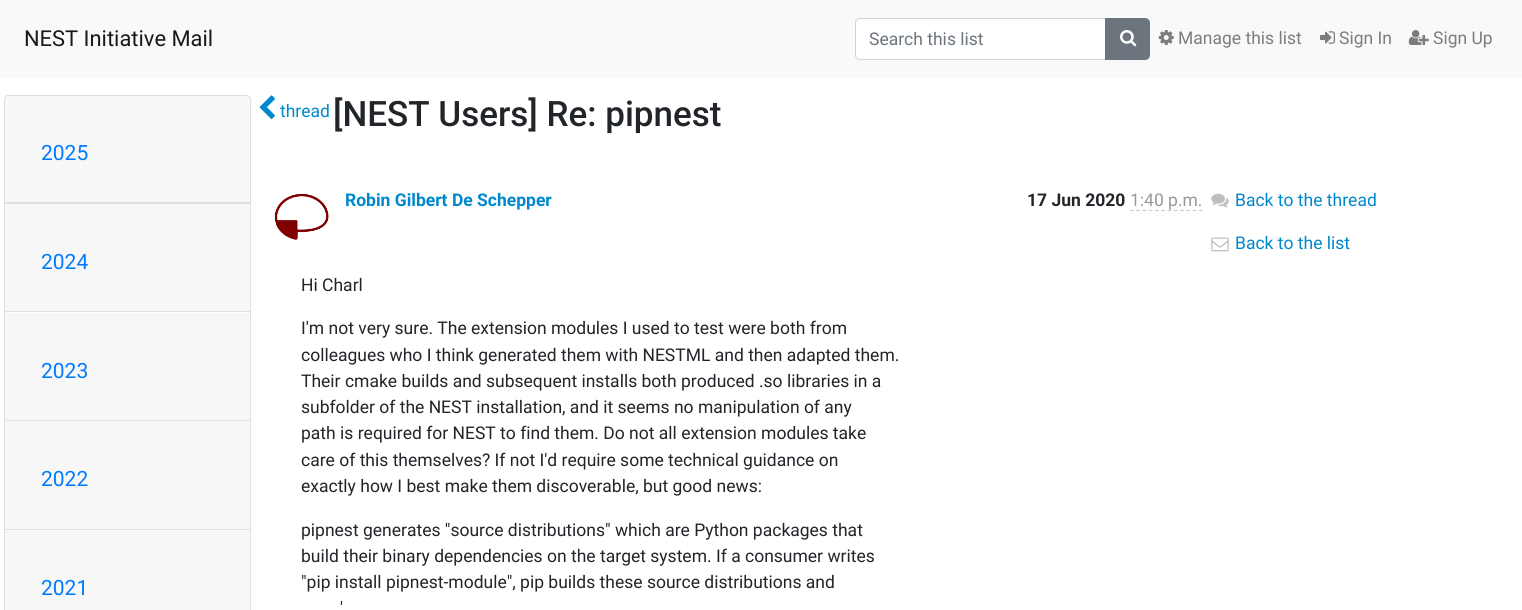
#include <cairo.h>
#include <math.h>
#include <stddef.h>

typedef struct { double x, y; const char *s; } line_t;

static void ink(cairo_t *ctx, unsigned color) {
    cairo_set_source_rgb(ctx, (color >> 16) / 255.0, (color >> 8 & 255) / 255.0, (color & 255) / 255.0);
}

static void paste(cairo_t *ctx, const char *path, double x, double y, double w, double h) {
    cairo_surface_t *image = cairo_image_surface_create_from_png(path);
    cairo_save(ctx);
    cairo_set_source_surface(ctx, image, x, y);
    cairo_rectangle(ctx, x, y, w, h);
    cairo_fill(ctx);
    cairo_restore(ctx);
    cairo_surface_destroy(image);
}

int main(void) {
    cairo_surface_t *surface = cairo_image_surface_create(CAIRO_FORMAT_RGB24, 1522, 610);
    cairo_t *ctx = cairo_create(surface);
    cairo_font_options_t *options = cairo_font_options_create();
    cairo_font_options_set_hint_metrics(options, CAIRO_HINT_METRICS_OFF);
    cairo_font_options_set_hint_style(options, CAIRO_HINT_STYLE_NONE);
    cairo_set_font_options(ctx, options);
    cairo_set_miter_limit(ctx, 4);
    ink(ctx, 0xFFFFFF);
    cairo_paint(ctx);
    ink(ctx, 0xF8F9FA);
    cairo_rectangle(ctx, 0, 0, 1522, 78);
    cairo_fill(ctx);
    cairo_select_font_face(ctx, "Roboto", CAIRO_FONT_SLANT_NORMAL, CAIRO_FONT_WEIGHT_NORMAL);
    cairo_set_font_size(ctx, 21.9);
    ink(ctx, 0x191919);
    cairo_move_to(ctx, 24, 46);
    cairo_show_text(ctx, "NEST Initiative Mail");
    ink(ctx, 0xFFFFFF);
    cairo_new_path(ctx);
    cairo_move_to(ctx, 859, 19);
    cairo_line_to(ctx, 1105, 19);
    cairo_line_to(ctx, 1105, 59);
    cairo_line_to(ctx, 859, 59);
    cairo_curve_to(ctx, 857.5, 59, 856, 57.5, 856, 56);
    cairo_line_to(ctx, 856, 22);
    cairo_curve_to(ctx, 856, 20.5, 857.5, 19, 859, 19);
    cairo_close_path(ctx);
    cairo_fill(ctx);
    cairo_new_path(ctx);
    cairo_move_to(ctx, 860, 18.5);
    cairo_line_to(ctx, 1105.5, 18.5);
    cairo_line_to(ctx, 1105.5, 59.5);
    cairo_line_to(ctx, 860, 59.5);
    cairo_curve_to(ctx, 857.5, 59.5, 855.5, 57.5, 855.5, 55);
    cairo_line_to(ctx, 855.5, 23);
    cairo_curve_to(ctx, 855.5, 20.5, 857.5, 18.5, 860, 18.5);
    cairo_close_path(ctx);
    ink(ctx, 0xCED4DA);
    cairo_set_line_width(ctx, 1);
    cairo_stroke(ctx);
    cairo_set_font_size(ctx, 17.5);
    ink(ctx, 0x6C757D);
    cairo_move_to(ctx, 869, 45);
    cairo_show_text(ctx, "Search this list");
    cairo_new_path(ctx);
    cairo_move_to(ctx, 1105.5, 18.5);
    cairo_line_to(ctx, 1145, 18.5);
    cairo_curve_to(ctx, 1147.5, 18.5, 1149.5, 20.5, 1149.5, 23);
    cairo_line_to(ctx, 1149.5, 55);
    cairo_curve_to(ctx, 1149.5, 57.5, 1147.5, 59.5, 1145, 59.5);
    cairo_line_to(ctx, 1105.5, 59.5);
    cairo_close_path(ctx);
    cairo_fill_preserve(ctx);
    cairo_stroke(ctx);
    paste(ctx, "media/1.png", 1120, 30, 17, 17);
    paste(ctx, "media/2.png", 1158, 30, 16, 15);
    ink(ctx, 0x7C7D7D);
    cairo_move_to(ctx, 1178, 44);
    cairo_show_text(ctx, "Manage this list");
    paste(ctx, "media/3.png", 1320, 31, 15, 13);
    cairo_move_to(ctx, 1339, 44);
    cairo_show_text(ctx, "Sign In");
    paste(ctx, "media/4.png", 1408, 30, 21, 15);
    cairo_move_to(ctx, 1433, 44);
    cairo_show_text(ctx, "Sign Up");
    ink(ctx, 0xDFDFDF);
    cairo_set_fill_rule(ctx, CAIRO_FILL_RULE_EVEN_ODD);
    cairo_new_path(ctx);
    cairo_move_to(ctx, 8, 95);
    cairo_line_to(ctx, 247, 95);
    cairo_curve_to(ctx, 249, 95, 251, 97, 251, 99);
    cairo_line_to(ctx, 251, 202);
    cairo_line_to(ctx, 4, 202);
    cairo_line_to(ctx, 4, 99);
    cairo_curve_to(ctx, 4, 97, 6, 95, 8, 95);
    cairo_close_path(ctx);
    cairo_move_to(ctx, 8, 96);
    cairo_line_to(ctx, 247, 96);
    cairo_curve_to(ctx, 249, 96, 250, 98, 250, 99);
    cairo_line_to(ctx, 250, 202);
    cairo_line_to(ctx, 5, 202);
    cairo_line_to(ctx, 5, 99);
    cairo_curve_to(ctx, 5, 98, 6, 96, 8, 96);
    cairo_close_path(ctx);
    cairo_fill(ctx);
    cairo_set_source_rgba(ctx, 0, 0, 0, 0.03);
    cairo_rectangle(ctx, 5, 96, 245, 107);
    cairo_fill(ctx);
    cairo_set_font_size(ctx, 21);
    ink(ctx, 0x007BFF);
    cairo_move_to(ctx, 41, 160);
    cairo_show_text(ctx, "2025");
    cairo_set_source_rgba(ctx, 0, 0, 0, 0.12);
    cairo_set_fill_rule(ctx, CAIRO_FILL_RULE_WINDING);
    cairo_new_path(ctx);
    cairo_move_to(ctx, 4, 202);
    cairo_line_to(ctx, 251, 202);
    cairo_line_to(ctx, 250, 204);
    cairo_line_to(ctx, 5, 204);
    cairo_close_path(ctx);
    cairo_fill(ctx);
    cairo_new_path(ctx);
    cairo_move_to(ctx, 251, 202);
    cairo_line_to(ctx, 251, 311);
    cairo_line_to(ctx, 250, 311);
    cairo_line_to(ctx, 250, 204);
    cairo_close_path(ctx);
    cairo_fill(ctx);
    cairo_new_path(ctx);
    cairo_move_to(ctx, 4, 311);
    cairo_line_to(ctx, 4, 202);
    cairo_line_to(ctx, 5, 204);
    cairo_line_to(ctx, 5, 311);
    cairo_close_path(ctx);
    cairo_fill(ctx);
    ink(ctx, 0xF7F7F7);
    cairo_rectangle(ctx, 5, 204, 245, 107);
    cairo_fill(ctx);
    ink(ctx, 0x007BFF);
    cairo_move_to(ctx, 41, 269);
    cairo_show_text(ctx, "2024");
    ink(ctx, 0xDFDFDF);
    cairo_new_path(ctx);
    cairo_move_to(ctx, 4, 311);
    cairo_line_to(ctx, 251, 311);
    cairo_line_to(ctx, 250, 312);
    cairo_line_to(ctx, 5, 312);
    cairo_close_path(ctx);
    cairo_fill(ctx);
    cairo_set_source_rgba(ctx, 0, 0, 0, 0.12);
    cairo_new_path(ctx);
    cairo_move_to(ctx, 251, 311);
    cairo_line_to(ctx, 251, 420);
    cairo_line_to(ctx, 250, 420);
    cairo_line_to(ctx, 250, 312);
    cairo_close_path(ctx);
    cairo_fill(ctx);
    cairo_new_path(ctx);
    cairo_move_to(ctx, 4, 420);
    cairo_line_to(ctx, 4, 311);
    cairo_line_to(ctx, 5, 312);
    cairo_line_to(ctx, 5, 420);
    cairo_close_path(ctx);
    cairo_fill(ctx);
    ink(ctx, 0xF7F7F7);
    cairo_rectangle(ctx, 5, 313, 245, 107);
    cairo_fill(ctx);
    ink(ctx, 0x007BFF);
    cairo_move_to(ctx, 41, 378);
    cairo_show_text(ctx, "2023");
    ink(ctx, 0xDFDFDF);
    cairo_new_path(ctx);
    cairo_move_to(ctx, 4, 420);
    cairo_line_to(ctx, 251, 420);
    cairo_line_to(ctx, 250, 421);
    cairo_line_to(ctx, 5, 421);
    cairo_close_path(ctx);
    cairo_fill(ctx);
    cairo_set_source_rgba(ctx, 0, 0, 0, 0.12);
    cairo_new_path(ctx);
    cairo_move_to(ctx, 251, 420);
    cairo_line_to(ctx, 251, 529);
    cairo_line_to(ctx, 250, 529);
    cairo_line_to(ctx, 250, 421);
    cairo_close_path(ctx);
    cairo_fill(ctx);
    cairo_new_path(ctx);
    cairo_move_to(ctx, 4, 529);
    cairo_line_to(ctx, 4, 420);
    cairo_line_to(ctx, 5, 421);
    cairo_line_to(ctx, 5, 529);
    cairo_close_path(ctx);
    cairo_fill(ctx);
    ink(ctx, 0xF7F7F7);
    cairo_rectangle(ctx, 5, 421, 245, 108);
    cairo_fill(ctx);
    ink(ctx, 0x007BFF);
    cairo_move_to(ctx, 41, 486);
    cairo_show_text(ctx, "2022");
    ink(ctx, 0xDFDFDF);
    cairo_new_path(ctx);
    cairo_move_to(ctx, 4, 529);
    cairo_line_to(ctx, 251, 529);
    cairo_line_to(ctx, 250, 530);
    cairo_line_to(ctx, 5, 530);
    cairo_close_path(ctx);
    cairo_fill(ctx);
    cairo_set_source_rgba(ctx, 0, 0, 0, 0.12);
    cairo_new_path(ctx);
    cairo_move_to(ctx, 251, 529);
    cairo_line_to(ctx, 251, 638);
    cairo_line_to(ctx, 250, 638);
    cairo_line_to(ctx, 250, 530);
    cairo_close_path(ctx);
    cairo_fill(ctx);
    cairo_new_path(ctx);
    cairo_move_to(ctx, 4, 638);
    cairo_line_to(ctx, 4, 529);
    cairo_line_to(ctx, 5, 530);
    cairo_line_to(ctx, 5, 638);
    cairo_close_path(ctx);
    cairo_fill(ctx);
    ink(ctx, 0xF7F7F7);
    cairo_rectangle(ctx, 5, 530, 245, 80);
    cairo_fill(ctx);
    ink(ctx, 0x007BFF);
    cairo_move_to(ctx, 41, 595);
    cairo_show_text(ctx, "2021");
    paste(ctx, "media/5.png", 259, 95, 16, 24);
    cairo_set_font_size(ctx, 17.5);
    ink(ctx, 0x0088CC);
    cairo_move_to(ctx, 280, 117);
    cairo_show_text(ctx, "thread");
    cairo_select_font_face(ctx, "Roboto Medium", CAIRO_FONT_SLANT_NORMAL, CAIRO_FONT_WEIGHT_NORMAL);
    cairo_set_font_size(ctx, 35);
    ink(ctx, 0x212529);
    cairo_move_to(ctx, 333, 126);
    cairo_show_text(ctx, "[NEST Users] Re: pipnest");
    paste(ctx, "media/6.png", 274, 194, 55, 46);
    cairo_select_font_face(ctx, "Roboto", CAIRO_FONT_SLANT_NORMAL, CAIRO_FONT_WEIGHT_BOLD);
    cairo_set_font_size(ctx, 17.5);
    ink(ctx, 0x0088CC);
    cairo_move_to(ctx, 345, 206);
    cairo_show_text(ctx, "Robin Gilbert De Schepper");
    ink(ctx, 0x212529);
    cairo_move_to(ctx, 1027, 206);
    cairo_show_text(ctx, "17 Jun 2020");
    cairo_new_path(ctx);
    cairo_move_to(ctx, 1130, 210.5);
    cairo_line_to(ctx, 1202.5, 210.5);
    ink(ctx, 0xCCCCCC);
    cairo_set_line_width(ctx, 1.2);
    cairo_set_dash(ctx, (double[]){3.75, 2.5}, 2, 0);
    cairo_stroke(ctx);
    cairo_select_font_face(ctx, "Roboto", CAIRO_FONT_SLANT_NORMAL, CAIRO_FONT_WEIGHT_NORMAL);
    ink(ctx, 0x999999);
    cairo_move_to(ctx, 1130, 206);
    cairo_show_text(ctx, "1:40 p.m.");
    ink(ctx, 0x212529);
    {
        static const line_t items[] = {
            {301, 291, "Hi Charl"},
            {301, 334, "I'm not very sure. The extension modules I used to test were both from"},
            {301, 361, "colleagues who I think generated them with NESTML and then adapted them."},
            {301, 387, "Their cmake builds and subsequent installs both produced .so libraries in a"},
            {301, 413, "subfolder of the NEST installation, and it seems no manipulation of any"},
            {301, 439, "path is required for NEST to find them. Do not all extension modules take"},
            {301, 466, "care of this themselves? If not I'd require some technical guidance on"},
            {301, 492, "exactly how I best make them discoverable, but good news:"},
            {301, 536, "pipnest generates \"source distributions\" which are Python packages that"},
            {301, 562, "build their binary dependencies on the target system. If a consumer writes"},
            {301, 588, "\"pip install pipnest-module\", pip builds these source distributions and"},
            {340, 614, "'"},
        };
        for (size_t i = 0; i < sizeof items / sizeof *items; i++) {
            cairo_move_to(ctx, items[i].x, items[i].y);
            cairo_show_text(ctx, items[i].s);
        }
    }
    paste(ctx, "media/7.png", 1211, 193, 18, 15);
    ink(ctx, 0x0088CC);
    cairo_move_to(ctx, 1235, 206);
    cairo_show_text(ctx, "Back to the thread");
    paste(ctx, "media/8.png", 1211, 237, 18, 15);
    cairo_move_to(ctx, 1235, 249);
    cairo_show_text(ctx, "Back to the list");
    cairo_surface_write_to_png(surface, "image.png");
    cairo_font_options_destroy(options);
    cairo_destroy(ctx);
    cairo_surface_destroy(surface);
    return 0;
}
